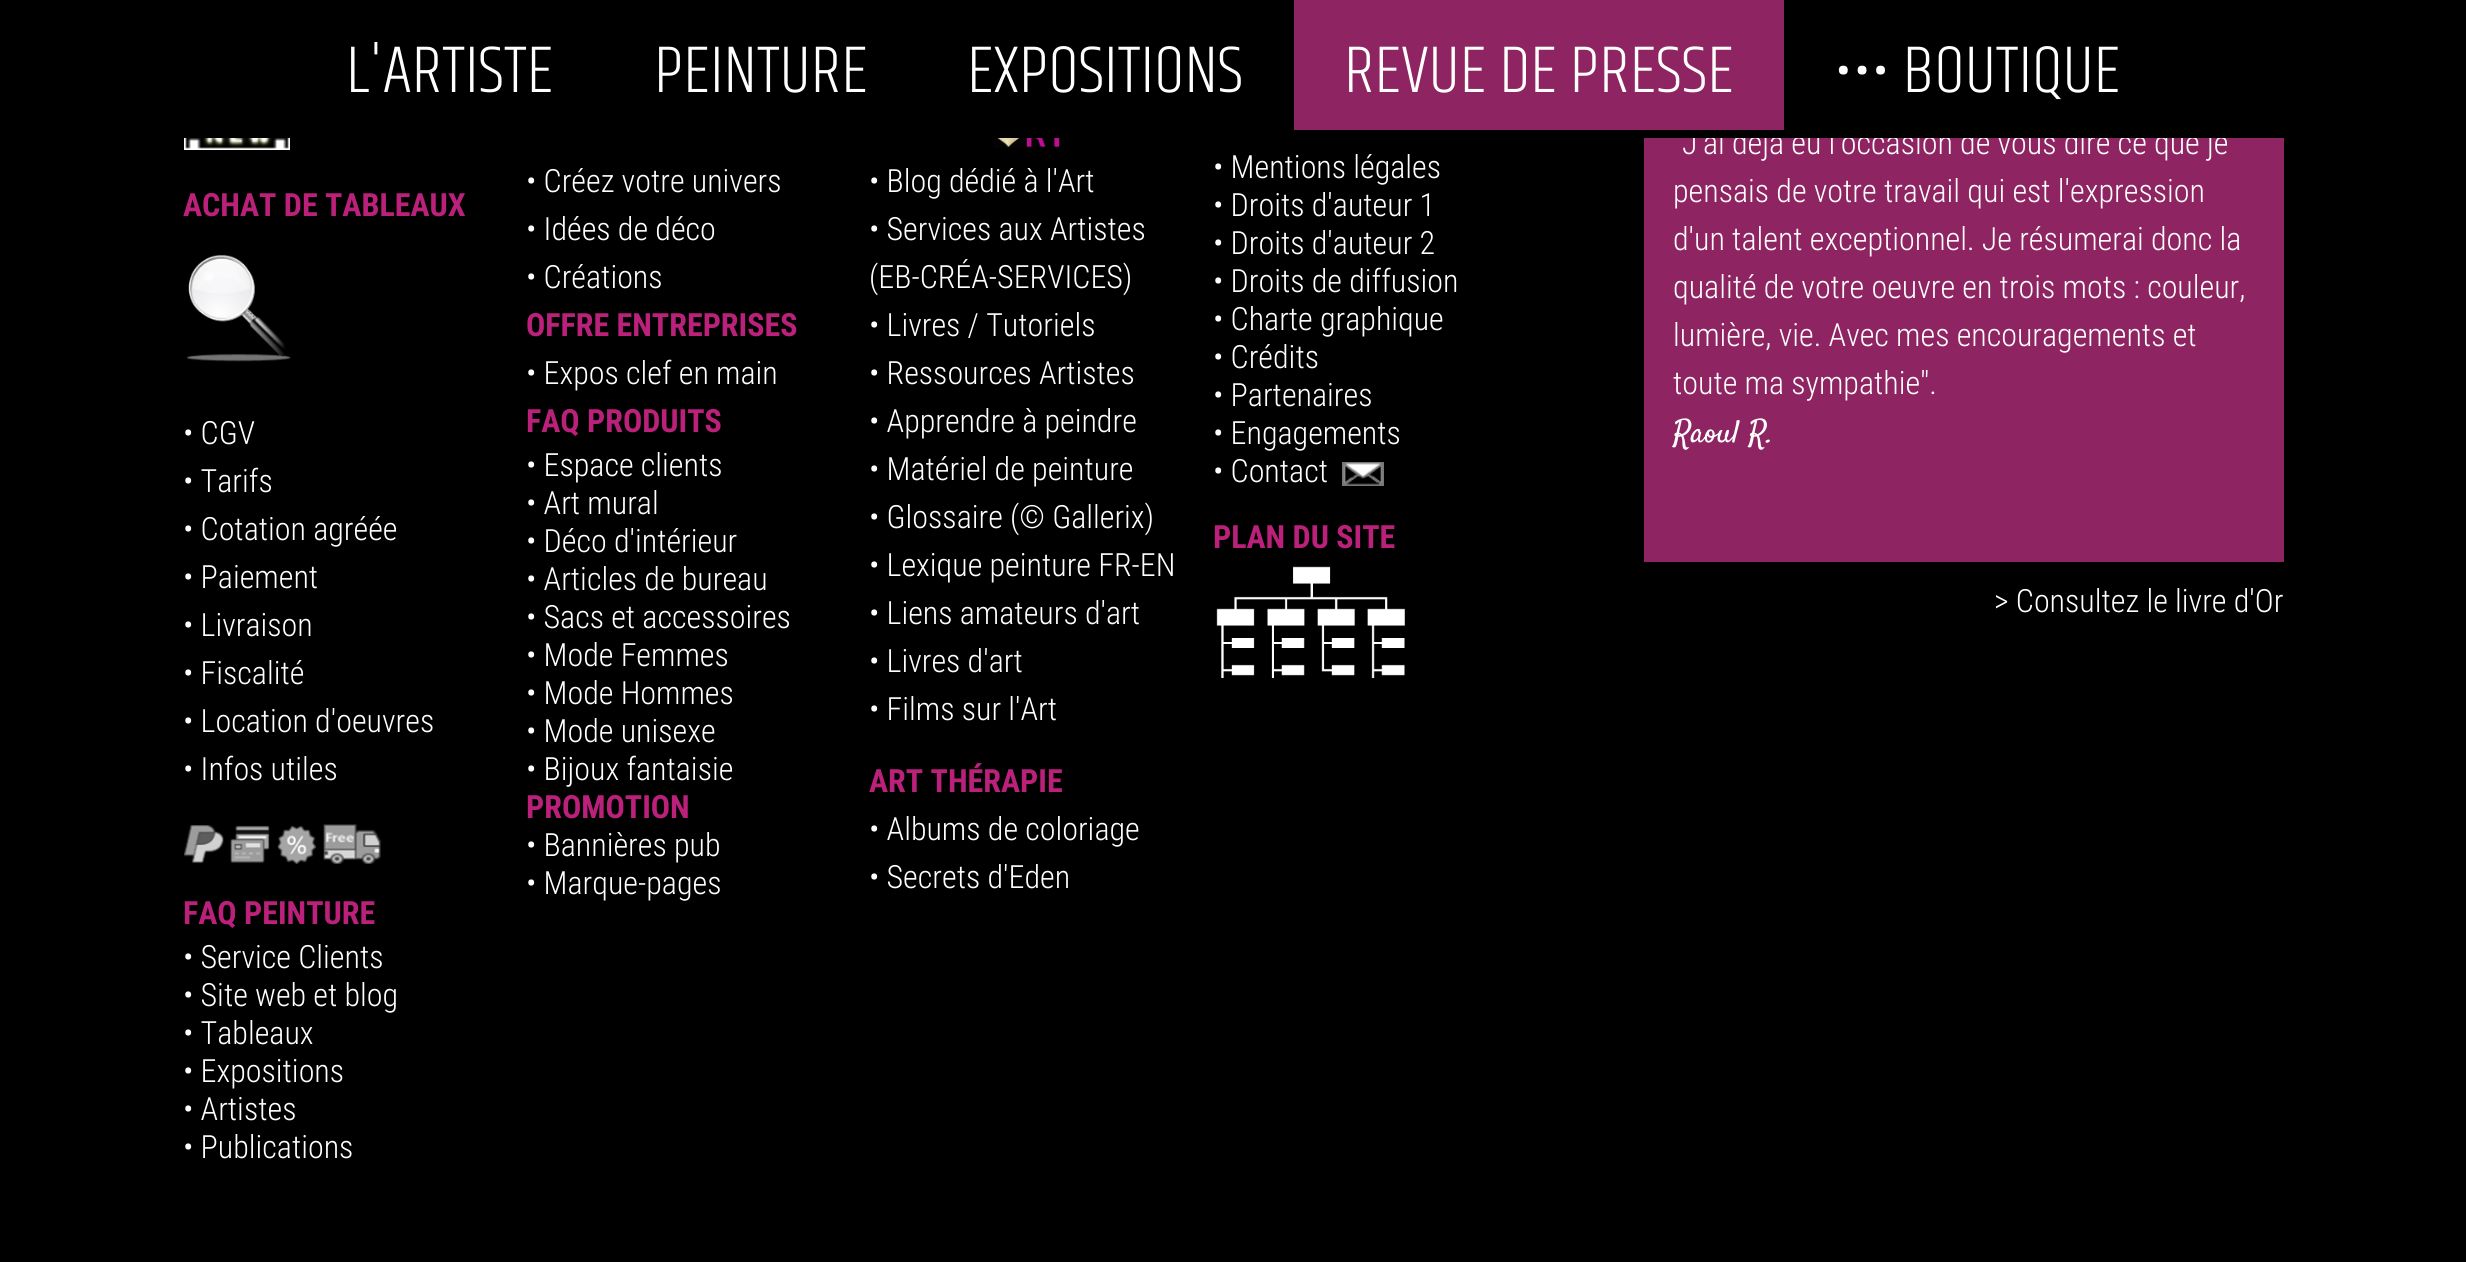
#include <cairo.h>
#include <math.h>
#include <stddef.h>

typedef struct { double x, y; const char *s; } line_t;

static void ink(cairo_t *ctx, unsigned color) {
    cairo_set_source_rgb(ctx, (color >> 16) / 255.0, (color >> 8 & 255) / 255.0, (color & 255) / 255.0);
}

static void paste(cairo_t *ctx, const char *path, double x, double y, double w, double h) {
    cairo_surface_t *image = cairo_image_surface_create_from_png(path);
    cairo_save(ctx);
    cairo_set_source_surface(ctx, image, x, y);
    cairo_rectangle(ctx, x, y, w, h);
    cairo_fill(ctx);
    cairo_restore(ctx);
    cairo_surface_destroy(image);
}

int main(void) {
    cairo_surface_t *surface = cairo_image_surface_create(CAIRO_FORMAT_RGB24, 2466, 1262);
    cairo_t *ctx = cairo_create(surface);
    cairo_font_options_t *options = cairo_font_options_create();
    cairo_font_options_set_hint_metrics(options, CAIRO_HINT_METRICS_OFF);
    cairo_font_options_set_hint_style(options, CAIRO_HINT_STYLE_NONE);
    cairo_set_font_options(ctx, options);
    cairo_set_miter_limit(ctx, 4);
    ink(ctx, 0x000000);
    cairo_paint(ctx);
    ink(ctx, 0x8E2562);
    cairo_rectangle(ctx, 1644, 138, 640, 424);
    cairo_fill(ctx);
    cairo_select_font_face(ctx, "Roboto Condensed Light", CAIRO_FONT_SLANT_NORMAL, CAIRO_FONT_WEIGHT_NORMAL);
    cairo_set_font_size(ctx, 32);
    ink(ctx, 0xFFFFFF);
    cairo_move_to(ctx, 1682, 154);
    cairo_show_text(ctx, "J'ai déjà eu l'occasion de vous dire ce que je");
    ink(ctx, 0x000000);
    cairo_rectangle(ctx, 1693, 130, 533, 8);
    cairo_fill(ctx);
    cairo_select_font_face(ctx, "Khand Light", CAIRO_FONT_SLANT_NORMAL, CAIRO_FONT_WEIGHT_NORMAL);
    cairo_set_font_size(ctx, 68);
    ink(ctx, 0xFFFFFF);
    {
        static const line_t items[] = {
            {346, 92, "L'ARTISTE"},
            {654, 92, "PEINTURE"},
            {967, 92, "EXPOSITIONS"},
        };
        for (size_t i = 0; i < sizeof items / sizeof *items; i++) {
            cairo_move_to(ctx, items[i].x, items[i].y);
            cairo_show_text(ctx, items[i].s);
        }
    }
    ink(ctx, 0x8E2562);
    cairo_rectangle(ctx, 1294, 0, 490, 130);
    cairo_fill(ctx);
    ink(ctx, 0xFFFFFF);
    cairo_move_to(ctx, 1344, 92);
    cairo_show_text(ctx, "REVUE DE PRESSE");
    cairo_move_to(ctx, 1834, 92);
    cairo_show_text(ctx, "••• BOUTIQUE");
    paste(ctx, "media/1.png", 184, 138, 106, 12);
    cairo_select_font_face(ctx, "Roboto Condensed", CAIRO_FONT_SLANT_NORMAL, CAIRO_FONT_WEIGHT_BOLD);
    cairo_set_font_size(ctx, 32);
    ink(ctx, 0xBB217B);
    cairo_move_to(ctx, 183, 216);
    cairo_show_text(ctx, "ACHAT DE TABLEAUX");
    paste(ctx, "media/2.png", 186, 254, 105, 108);
    cairo_select_font_face(ctx, "Roboto Condensed Light", CAIRO_FONT_SLANT_NORMAL, CAIRO_FONT_WEIGHT_NORMAL);
    ink(ctx, 0xFFFFFF);
    {
        static const line_t items[] = {
            {183, 444, "• CGV"},
            {183, 492, "• Tarifs"},
            {183, 540, "• Cotation agréée"},
            {183, 588, "• Paiement"},
            {183, 636, "• Livraison"},
            {183, 684, "• Fiscalité"},
            {183, 732, "• Location d'oeuvres"},
            {183, 780, "• Infos utiles"},
        };
        for (size_t i = 0; i < sizeof items / sizeof *items; i++) {
            cairo_move_to(ctx, items[i].x, items[i].y);
            cairo_show_text(ctx, items[i].s);
        }
    }
    paste(ctx, "media/3.png", 184, 824, 197, 40);
    cairo_select_font_face(ctx, "Roboto Condensed", CAIRO_FONT_SLANT_NORMAL, CAIRO_FONT_WEIGHT_BOLD);
    ink(ctx, 0xBB217B);
    cairo_move_to(ctx, 183, 924);
    cairo_show_text(ctx, "FAQ PEINTURE");
    cairo_select_font_face(ctx, "Roboto Condensed Light", CAIRO_FONT_SLANT_NORMAL, CAIRO_FONT_WEIGHT_NORMAL);
    ink(ctx, 0xFFFFFF);
    {
        static const line_t items[] = {
            {183, 968, "• Service Clients"},
            {183, 1006, "• Site web et blog"},
            {183, 1044, "• Tableaux"},
            {183, 1082, "• Expositions"},
            {183, 1120, "• Artistes"},
            {183, 1158, "• Publications"},
            {526, 192, "• Créez votre univers"},
            {526, 240, "• Idées de déco"},
            {526, 288, "• Créations"},
        };
        for (size_t i = 0; i < sizeof items / sizeof *items; i++) {
            cairo_move_to(ctx, items[i].x, items[i].y);
            cairo_show_text(ctx, items[i].s);
        }
    }
    cairo_select_font_face(ctx, "Roboto Condensed", CAIRO_FONT_SLANT_NORMAL, CAIRO_FONT_WEIGHT_BOLD);
    ink(ctx, 0xBB217B);
    cairo_move_to(ctx, 526, 336);
    cairo_show_text(ctx, "OFFRE ENTREPRISES");
    cairo_select_font_face(ctx, "Roboto Condensed Light", CAIRO_FONT_SLANT_NORMAL, CAIRO_FONT_WEIGHT_NORMAL);
    ink(ctx, 0xFFFFFF);
    cairo_move_to(ctx, 526, 384);
    cairo_show_text(ctx, "• Expos clef en main");
    cairo_select_font_face(ctx, "Roboto Condensed", CAIRO_FONT_SLANT_NORMAL, CAIRO_FONT_WEIGHT_BOLD);
    ink(ctx, 0xBB217B);
    cairo_move_to(ctx, 526, 432);
    cairo_show_text(ctx, "FAQ PRODUITS");
    cairo_select_font_face(ctx, "Roboto Condensed Light", CAIRO_FONT_SLANT_NORMAL, CAIRO_FONT_WEIGHT_NORMAL);
    ink(ctx, 0xFFFFFF);
    {
        static const line_t items[] = {
            {526, 476, "• Espace clients"},
            {526, 514, "• Art mural"},
            {526, 552, "• Déco d'intérieur"},
            {526, 590, "• Articles de bureau"},
            {526, 628, "• Sacs et accessoires"},
            {526, 666, "• Mode Femmes"},
            {526, 704, "• Mode Hommes"},
            {526, 742, "• Mode unisexe"},
            {526, 780, "• Bijoux fantaisie"},
        };
        for (size_t i = 0; i < sizeof items / sizeof *items; i++) {
            cairo_move_to(ctx, items[i].x, items[i].y);
            cairo_show_text(ctx, items[i].s);
        }
    }
    cairo_select_font_face(ctx, "Roboto Condensed", CAIRO_FONT_SLANT_NORMAL, CAIRO_FONT_WEIGHT_BOLD);
    ink(ctx, 0xBB217B);
    cairo_move_to(ctx, 526, 818);
    cairo_show_text(ctx, "PROMOTION");
    cairo_select_font_face(ctx, "Roboto Condensed Light", CAIRO_FONT_SLANT_NORMAL, CAIRO_FONT_WEIGHT_NORMAL);
    ink(ctx, 0xFFFFFF);
    cairo_move_to(ctx, 526, 856);
    cairo_show_text(ctx, "• Bannières pub");
    cairo_move_to(ctx, 526, 894);
    cairo_show_text(ctx, "• Marque-pages");
    paste(ctx, "media/4.png", 993, 138, 67, 10);
    {
        static const line_t items[] = {
            {869, 192, "• Blog dédié à l'Art"},
            {869, 240, "• Services aux Artistes"},
            {869, 288, "(EB-CRÉA-SERVICES)"},
            {869, 336, "• Livres / Tutoriels"},
            {869, 384, "• Ressources Artistes"},
            {869, 432, "• Apprendre à peindre"},
            {869, 480, "• Matériel de peinture"},
            {869, 528, "• Glossaire (© Gallerix)"},
            {869, 576, "• Lexique peinture FR-EN"},
            {869, 624, "• Liens amateurs d'art"},
            {869, 672, "• Livres d'art"},
            {869, 720, "• Films sur l'Art"},
        };
        for (size_t i = 0; i < sizeof items / sizeof *items; i++) {
            cairo_move_to(ctx, items[i].x, items[i].y);
            cairo_show_text(ctx, items[i].s);
        }
    }
    cairo_select_font_face(ctx, "Roboto Condensed", CAIRO_FONT_SLANT_NORMAL, CAIRO_FONT_WEIGHT_BOLD);
    ink(ctx, 0xBB217B);
    cairo_move_to(ctx, 869, 792);
    cairo_show_text(ctx, "ART THÉRAPIE");
    cairo_select_font_face(ctx, "Roboto Condensed Light", CAIRO_FONT_SLANT_NORMAL, CAIRO_FONT_WEIGHT_NORMAL);
    ink(ctx, 0xFFFFFF);
    {
        static const line_t items[] = {
            {869, 840, "• Albums de coloriage"},
            {869, 888, "• Secrets d'Eden"},
            {1213, 178, "• Mentions légales"},
            {1213, 216, "• Droits d'auteur 1"},
            {1213, 254, "• Droits d'auteur 2"},
            {1213, 292, "• Droits de diffusion"},
            {1213, 330, "• Charte graphique"},
            {1213, 368, "• Crédits"},
            {1213, 406, "• Partenaires"},
            {1213, 444, "• Engagements"},
            {1213, 482, "• Contact"},
        };
        for (size_t i = 0; i < sizeof items / sizeof *items; i++) {
            cairo_move_to(ctx, items[i].x, items[i].y);
            cairo_show_text(ctx, items[i].s);
        }
    }
    paste(ctx, "media/5.png", 1342, 462, 42, 24);
    cairo_select_font_face(ctx, "Roboto Condensed", CAIRO_FONT_SLANT_NORMAL, CAIRO_FONT_WEIGHT_BOLD);
    ink(ctx, 0xBB217B);
    cairo_move_to(ctx, 1213, 548);
    cairo_show_text(ctx, "PLAN DU SITE");
    paste(ctx, "media/6.png", 1216, 566, 189, 112);
    cairo_select_font_face(ctx, "Roboto Condensed Light", CAIRO_FONT_SLANT_NORMAL, CAIRO_FONT_WEIGHT_NORMAL);
    ink(ctx, 0xFFFFFF);
    {
        static const line_t items[] = {
            {1673, 202, "pensais de votre travail qui est l'expression"},
            {1673, 250, "d'un talent exceptionnel. Je résumerai donc la"},
            {1673, 298, "qualité de votre oeuvre en trois mots : couleur,"},
            {1673, 346, "lumière, vie. Avec mes encouragements et"},
            {1673, 394, "toute ma sympathie\"."},
        };
        for (size_t i = 0; i < sizeof items / sizeof *items; i++) {
            cairo_move_to(ctx, items[i].x, items[i].y);
            cairo_show_text(ctx, items[i].s);
        }
    }
    cairo_select_font_face(ctx, "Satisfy", CAIRO_FONT_SLANT_NORMAL, CAIRO_FONT_WEIGHT_NORMAL);
    cairo_move_to(ctx, 1673, 442);
    cairo_show_text(ctx, "Raoul R.");
    cairo_select_font_face(ctx, "Roboto Condensed Light", CAIRO_FONT_SLANT_NORMAL, CAIRO_FONT_WEIGHT_NORMAL);
    cairo_move_to(ctx, 1994, 612);
    cairo_show_text(ctx, "> Consultez le livre d'Or");
    cairo_surface_write_to_png(surface, "image.png");
    cairo_font_options_destroy(options);
    cairo_destroy(ctx);
    cairo_surface_destroy(surface);
    return 0;
}
